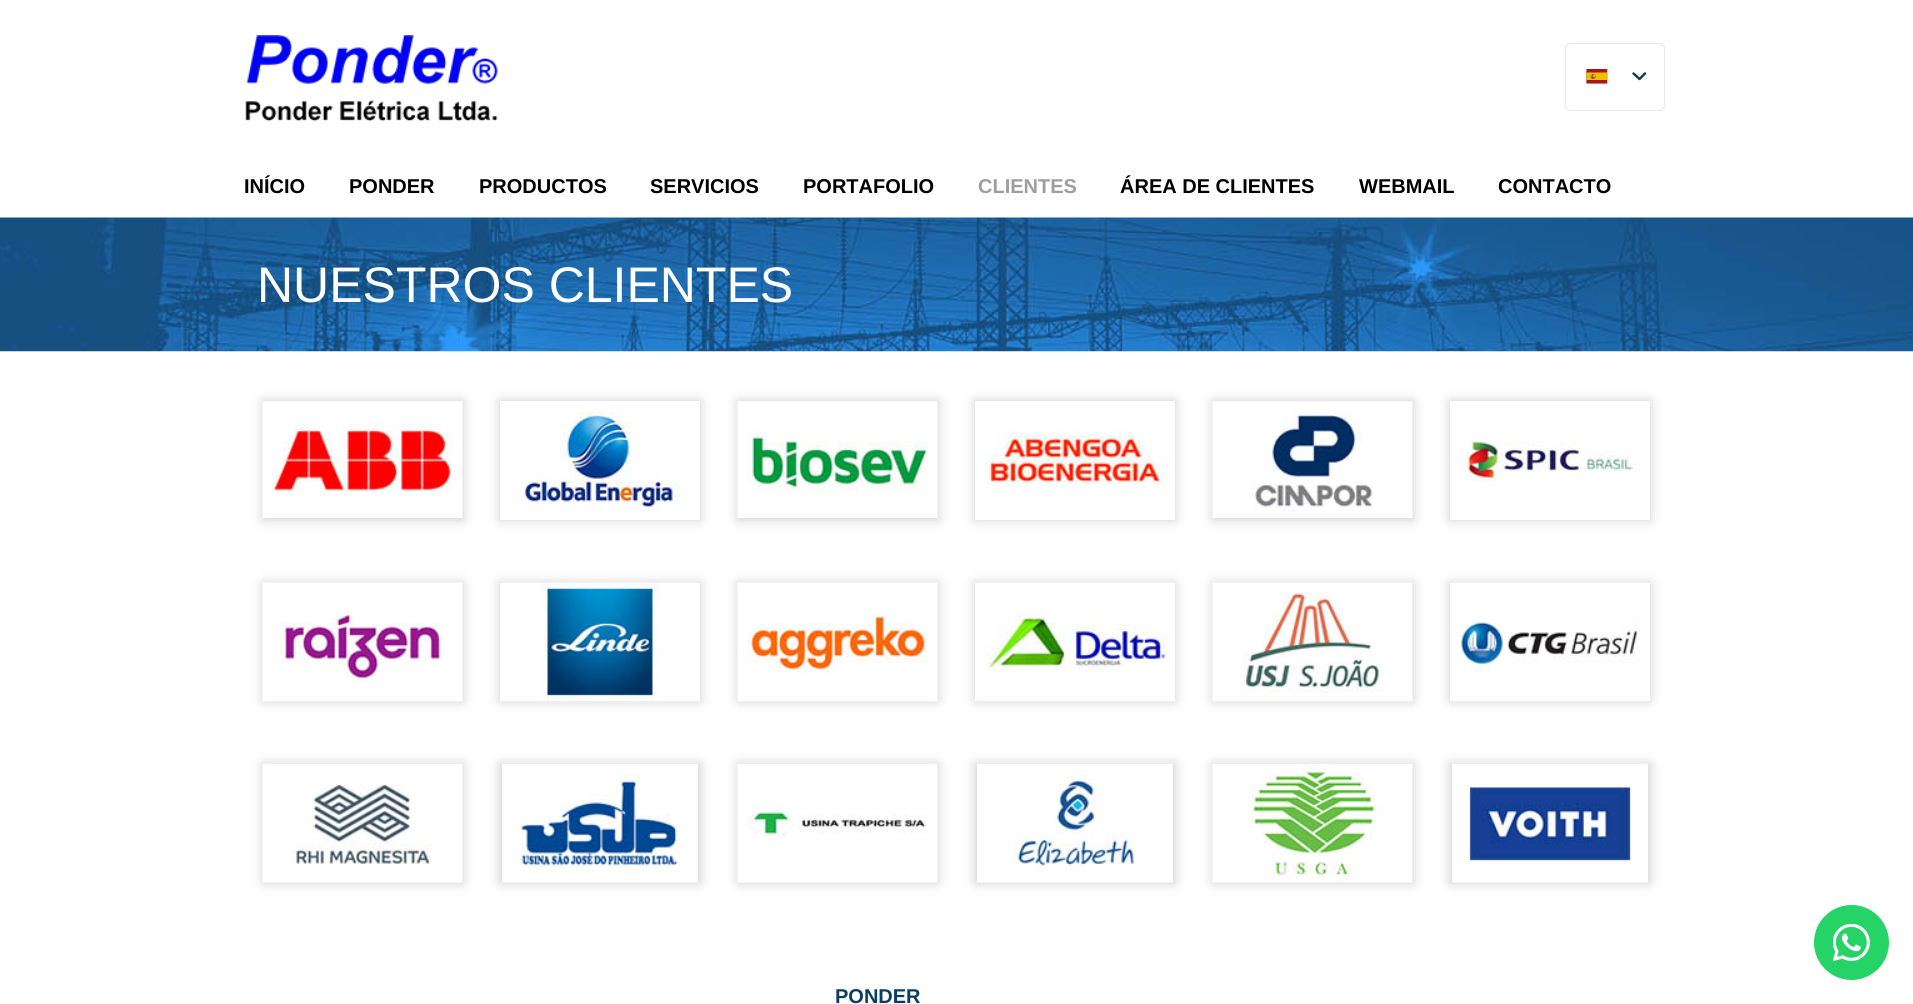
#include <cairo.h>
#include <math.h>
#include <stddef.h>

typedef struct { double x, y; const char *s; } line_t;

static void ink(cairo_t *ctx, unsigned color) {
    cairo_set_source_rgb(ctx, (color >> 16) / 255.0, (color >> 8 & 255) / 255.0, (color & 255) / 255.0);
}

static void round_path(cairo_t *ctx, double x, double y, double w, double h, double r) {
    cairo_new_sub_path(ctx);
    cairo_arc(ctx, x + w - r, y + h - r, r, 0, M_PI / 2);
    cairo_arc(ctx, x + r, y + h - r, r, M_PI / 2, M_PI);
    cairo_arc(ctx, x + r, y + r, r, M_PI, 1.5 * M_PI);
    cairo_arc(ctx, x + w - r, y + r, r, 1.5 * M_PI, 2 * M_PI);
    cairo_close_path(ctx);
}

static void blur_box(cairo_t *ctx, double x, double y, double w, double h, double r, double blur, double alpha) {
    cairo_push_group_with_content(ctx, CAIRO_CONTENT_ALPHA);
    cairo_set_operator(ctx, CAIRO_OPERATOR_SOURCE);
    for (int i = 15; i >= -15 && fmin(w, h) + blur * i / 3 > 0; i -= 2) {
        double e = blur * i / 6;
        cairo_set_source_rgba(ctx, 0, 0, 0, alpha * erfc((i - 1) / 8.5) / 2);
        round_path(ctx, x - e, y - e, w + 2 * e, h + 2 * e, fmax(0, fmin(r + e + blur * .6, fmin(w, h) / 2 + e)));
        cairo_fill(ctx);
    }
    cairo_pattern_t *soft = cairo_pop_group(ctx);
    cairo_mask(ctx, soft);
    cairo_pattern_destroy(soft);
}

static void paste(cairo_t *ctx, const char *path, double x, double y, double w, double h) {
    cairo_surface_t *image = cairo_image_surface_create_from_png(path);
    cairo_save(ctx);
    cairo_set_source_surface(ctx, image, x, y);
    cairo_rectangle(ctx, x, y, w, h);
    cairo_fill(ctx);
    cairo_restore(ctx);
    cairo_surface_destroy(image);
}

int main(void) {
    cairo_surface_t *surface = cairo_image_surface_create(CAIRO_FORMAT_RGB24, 1913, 1004);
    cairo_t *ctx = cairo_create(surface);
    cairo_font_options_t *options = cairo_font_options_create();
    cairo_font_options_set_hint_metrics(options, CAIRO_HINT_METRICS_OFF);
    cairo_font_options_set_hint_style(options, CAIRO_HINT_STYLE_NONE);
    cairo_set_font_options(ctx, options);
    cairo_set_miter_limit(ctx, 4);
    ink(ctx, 0xFFFFFF);
    cairo_paint(ctx);
    paste(ctx, "media/1.png", 245, 35, 253, 87);
    round_path(ctx, 1565.5, 43.5, 99, 67, 5.5);
    ink(ctx, 0xE8EBEE);
    cairo_set_line_width(ctx, 1);
    cairo_stroke(ctx);
    ink(ctx, 0xFFFFFF);
    round_path(ctx, 1565, 43, 100, 68, 6);
    cairo_fill(ctx);
    round_path(ctx, 1565.5, 43.5, 99, 67, 5.5);
    cairo_set_source_rgba(ctx, 0.078, 0.22, 0.322, 0.1);
    cairo_stroke(ctx);
    paste(ctx, "media/2.png", 1586, 69, 22, 15);
    cairo_new_path(ctx);
    cairo_move_to(ctx, 1633.5, 73.5);
    cairo_line_to(ctx, 1639.5, 79);
    cairo_line_to(ctx, 1645, 73.5);
    ink(ctx, 0x143852);
    cairo_set_line_width(ctx, 2.4);
    cairo_set_line_cap(ctx, CAIRO_LINE_CAP_ROUND);
    cairo_set_line_join(ctx, CAIRO_LINE_JOIN_ROUND);
    cairo_stroke(ctx);
    cairo_select_font_face(ctx, "Liberation Sans", CAIRO_FONT_SLANT_NORMAL, CAIRO_FONT_WEIGHT_BOLD);
    cairo_set_font_size(ctx, 20);
    ink(ctx, 0x000000);
    {
        static const line_t items[] = {
            {244, 193, "INÍCIO"},
            {349, 193, "PONDER"},
            {479, 193, "PRODUCTOS"},
            {650, 193, "SERVICIOS"},
            {803, 193, "PORTAFOLIO"},
        };
        for (size_t i = 0; i < sizeof items / sizeof *items; i++) {
            cairo_move_to(ctx, items[i].x, items[i].y);
            cairo_show_text(ctx, items[i].s);
        }
    }
    ink(ctx, 0x9E9E9E);
    cairo_move_to(ctx, 978, 193);
    cairo_show_text(ctx, "CLIENTES");
    ink(ctx, 0x000000);
    {
        static const line_t items[] = {
            {1120, 193, "ÁREA DE CLIENTES"},
            {1359, 193, "WEBMAIL"},
            {1498, 193, "CONTACTO"},
        };
        for (size_t i = 0; i < sizeof items / sizeof *items; i++) {
            cairo_move_to(ctx, items[i].x, items[i].y);
            cairo_show_text(ctx, items[i].s);
        }
    }
    paste(ctx, "media/3.png", 0, 217, 1913, 135);
    cairo_select_font_face(ctx, "Liberation Sans", CAIRO_FONT_SLANT_NORMAL, CAIRO_FONT_WEIGHT_NORMAL);
    cairo_set_font_size(ctx, 50);
    ink(ctx, 0xFFFFFF);
    cairo_move_to(ctx, 257, 302);
    cairo_show_text(ctx, "NUESTROS CLIENTES");
    ink(ctx, 0x000000);
    blur_box(ctx, 263, 401, 200, 119, 0, 6, 0.19);
    paste(ctx, "media/4.png", 262, 401, 201, 117);
    cairo_save(ctx);
    cairo_set_fill_rule(ctx, CAIRO_FILL_RULE_EVEN_ODD);
    cairo_new_path(ctx);
    cairo_move_to(ctx, 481, 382);
    cairo_line_to(ctx, 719, 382);
    cairo_line_to(ctx, 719, 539);
    cairo_line_to(ctx, 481, 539);
    cairo_close_path(ctx);
    cairo_move_to(ctx, 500, 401);
    cairo_line_to(ctx, 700, 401);
    cairo_line_to(ctx, 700, 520);
    cairo_line_to(ctx, 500, 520);
    cairo_close_path(ctx);
    cairo_clip(ctx);
    blur_box(ctx, 500, 401, 200, 119, 0, 6, 0.19);
    cairo_restore(ctx);
    paste(ctx, "media/5.png", 505, 401, 190, 111);
    blur_box(ctx, 738, 401, 200, 119, 0, 6, 0.19);
    paste(ctx, "media/6.png", 737, 401, 201, 117);
    cairo_save(ctx);
    cairo_set_fill_rule(ctx, CAIRO_FILL_RULE_EVEN_ODD);
    cairo_new_path(ctx);
    cairo_move_to(ctx, 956, 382);
    cairo_line_to(ctx, 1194, 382);
    cairo_line_to(ctx, 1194, 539);
    cairo_line_to(ctx, 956, 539);
    cairo_close_path(ctx);
    cairo_move_to(ctx, 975, 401);
    cairo_line_to(ctx, 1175, 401);
    cairo_line_to(ctx, 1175, 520);
    cairo_line_to(ctx, 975, 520);
    cairo_close_path(ctx);
    cairo_clip(ctx);
    blur_box(ctx, 975, 401, 200, 119, 0, 6, 0.19);
    cairo_restore(ctx);
    paste(ctx, "media/7.png", 980, 401, 190, 90);
    blur_box(ctx, 1213, 401, 200, 119, 0, 6, 0.19);
    paste(ctx, "media/8.png", 1212, 401, 201, 117);
    cairo_save(ctx);
    cairo_set_fill_rule(ctx, CAIRO_FILL_RULE_EVEN_ODD);
    cairo_new_path(ctx);
    cairo_move_to(ctx, 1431, 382);
    cairo_line_to(ctx, 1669, 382);
    cairo_line_to(ctx, 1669, 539);
    cairo_line_to(ctx, 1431, 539);
    cairo_close_path(ctx);
    cairo_move_to(ctx, 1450, 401);
    cairo_line_to(ctx, 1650, 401);
    cairo_line_to(ctx, 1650, 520);
    cairo_line_to(ctx, 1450, 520);
    cairo_close_path(ctx);
    cairo_clip(ctx);
    blur_box(ctx, 1450, 401, 200, 119, 0, 6, 0.19);
    cairo_restore(ctx);
    paste(ctx, "media/9.png", 1455, 401, 190, 81);
    blur_box(ctx, 263, 583, 200, 118, 0, 6, 0.19);
    paste(ctx, "media/10.png", 262, 582, 201, 120);
    cairo_save(ctx);
    cairo_set_fill_rule(ctx, CAIRO_FILL_RULE_EVEN_ODD);
    cairo_new_path(ctx);
    cairo_move_to(ctx, 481, 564);
    cairo_line_to(ctx, 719, 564);
    cairo_line_to(ctx, 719, 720);
    cairo_line_to(ctx, 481, 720);
    cairo_close_path(ctx);
    cairo_move_to(ctx, 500, 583);
    cairo_line_to(ctx, 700, 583);
    cairo_line_to(ctx, 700, 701);
    cairo_line_to(ctx, 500, 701);
    cairo_close_path(ctx);
    cairo_clip(ctx);
    blur_box(ctx, 500, 583, 200, 118, 0, 6, 0.19);
    cairo_restore(ctx);
    paste(ctx, "media/11.png", 503, 582, 194, 120);
    blur_box(ctx, 738, 583, 200, 118, 0, 6, 0.19);
    paste(ctx, "media/12.png", 737, 582, 201, 120);
    cairo_save(ctx);
    cairo_set_fill_rule(ctx, CAIRO_FILL_RULE_EVEN_ODD);
    cairo_new_path(ctx);
    cairo_move_to(ctx, 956, 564);
    cairo_line_to(ctx, 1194, 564);
    cairo_line_to(ctx, 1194, 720);
    cairo_line_to(ctx, 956, 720);
    cairo_close_path(ctx);
    cairo_move_to(ctx, 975, 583);
    cairo_line_to(ctx, 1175, 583);
    cairo_line_to(ctx, 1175, 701);
    cairo_line_to(ctx, 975, 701);
    cairo_close_path(ctx);
    cairo_clip(ctx);
    blur_box(ctx, 975, 583, 200, 118, 0, 6, 0.19);
    cairo_restore(ctx);
    paste(ctx, "media/13.png", 978, 582, 194, 120);
    blur_box(ctx, 1213, 583, 200, 118, 0, 6, 0.19);
    paste(ctx, "media/14.png", 1212, 582, 201, 120);
    cairo_save(ctx);
    cairo_set_fill_rule(ctx, CAIRO_FILL_RULE_EVEN_ODD);
    cairo_new_path(ctx);
    cairo_move_to(ctx, 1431, 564);
    cairo_line_to(ctx, 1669, 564);
    cairo_line_to(ctx, 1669, 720);
    cairo_line_to(ctx, 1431, 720);
    cairo_close_path(ctx);
    cairo_move_to(ctx, 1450, 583);
    cairo_line_to(ctx, 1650, 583);
    cairo_line_to(ctx, 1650, 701);
    cairo_line_to(ctx, 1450, 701);
    cairo_close_path(ctx);
    cairo_clip(ctx);
    blur_box(ctx, 1450, 583, 200, 118, 0, 6, 0.19);
    cairo_restore(ctx);
    paste(ctx, "media/15.png", 1453, 582, 194, 120);
    blur_box(ctx, 263, 764, 200, 119, 0, 6, 0.19);
    paste(ctx, "media/16.png", 262, 763, 201, 120);
    blur_box(ctx, 500, 764, 200, 119, 0, 6, 0.19);
    paste(ctx, "media/17.png", 502, 763, 196, 120);
    blur_box(ctx, 738, 764, 200, 119, 0, 6, 0.19);
    paste(ctx, "media/18.png", 737, 763, 201, 120);
    blur_box(ctx, 975, 764, 200, 119, 0, 6, 0.19);
    paste(ctx, "media/19.png", 977, 763, 196, 120);
    blur_box(ctx, 1213, 764, 200, 119, 0, 6, 0.19);
    paste(ctx, "media/20.png", 1212, 763, 201, 120);
    blur_box(ctx, 1450, 764, 200, 119, 0, 6, 0.19);
    paste(ctx, "media/21.png", 1452, 763, 196, 120);
    ink(ctx, 0x25D366);
    cairo_arc(ctx, 1851.5, 942.5, 37.5, 0, 2 * M_PI);
    cairo_fill(ctx);
    paste(ctx, "media/22.png", 1833, 924, 37, 37);
    cairo_select_font_face(ctx, "Liberation Sans", CAIRO_FONT_SLANT_NORMAL, CAIRO_FONT_WEIGHT_BOLD);
    cairo_set_font_size(ctx, 20);
    ink(ctx, 0x093E64);
    cairo_move_to(ctx, 835, 1003);
    cairo_show_text(ctx, "PONDER");
    cairo_surface_write_to_png(surface, "image.png");
    cairo_font_options_destroy(options);
    cairo_destroy(ctx);
    cairo_surface_destroy(surface);
    return 0;
}
